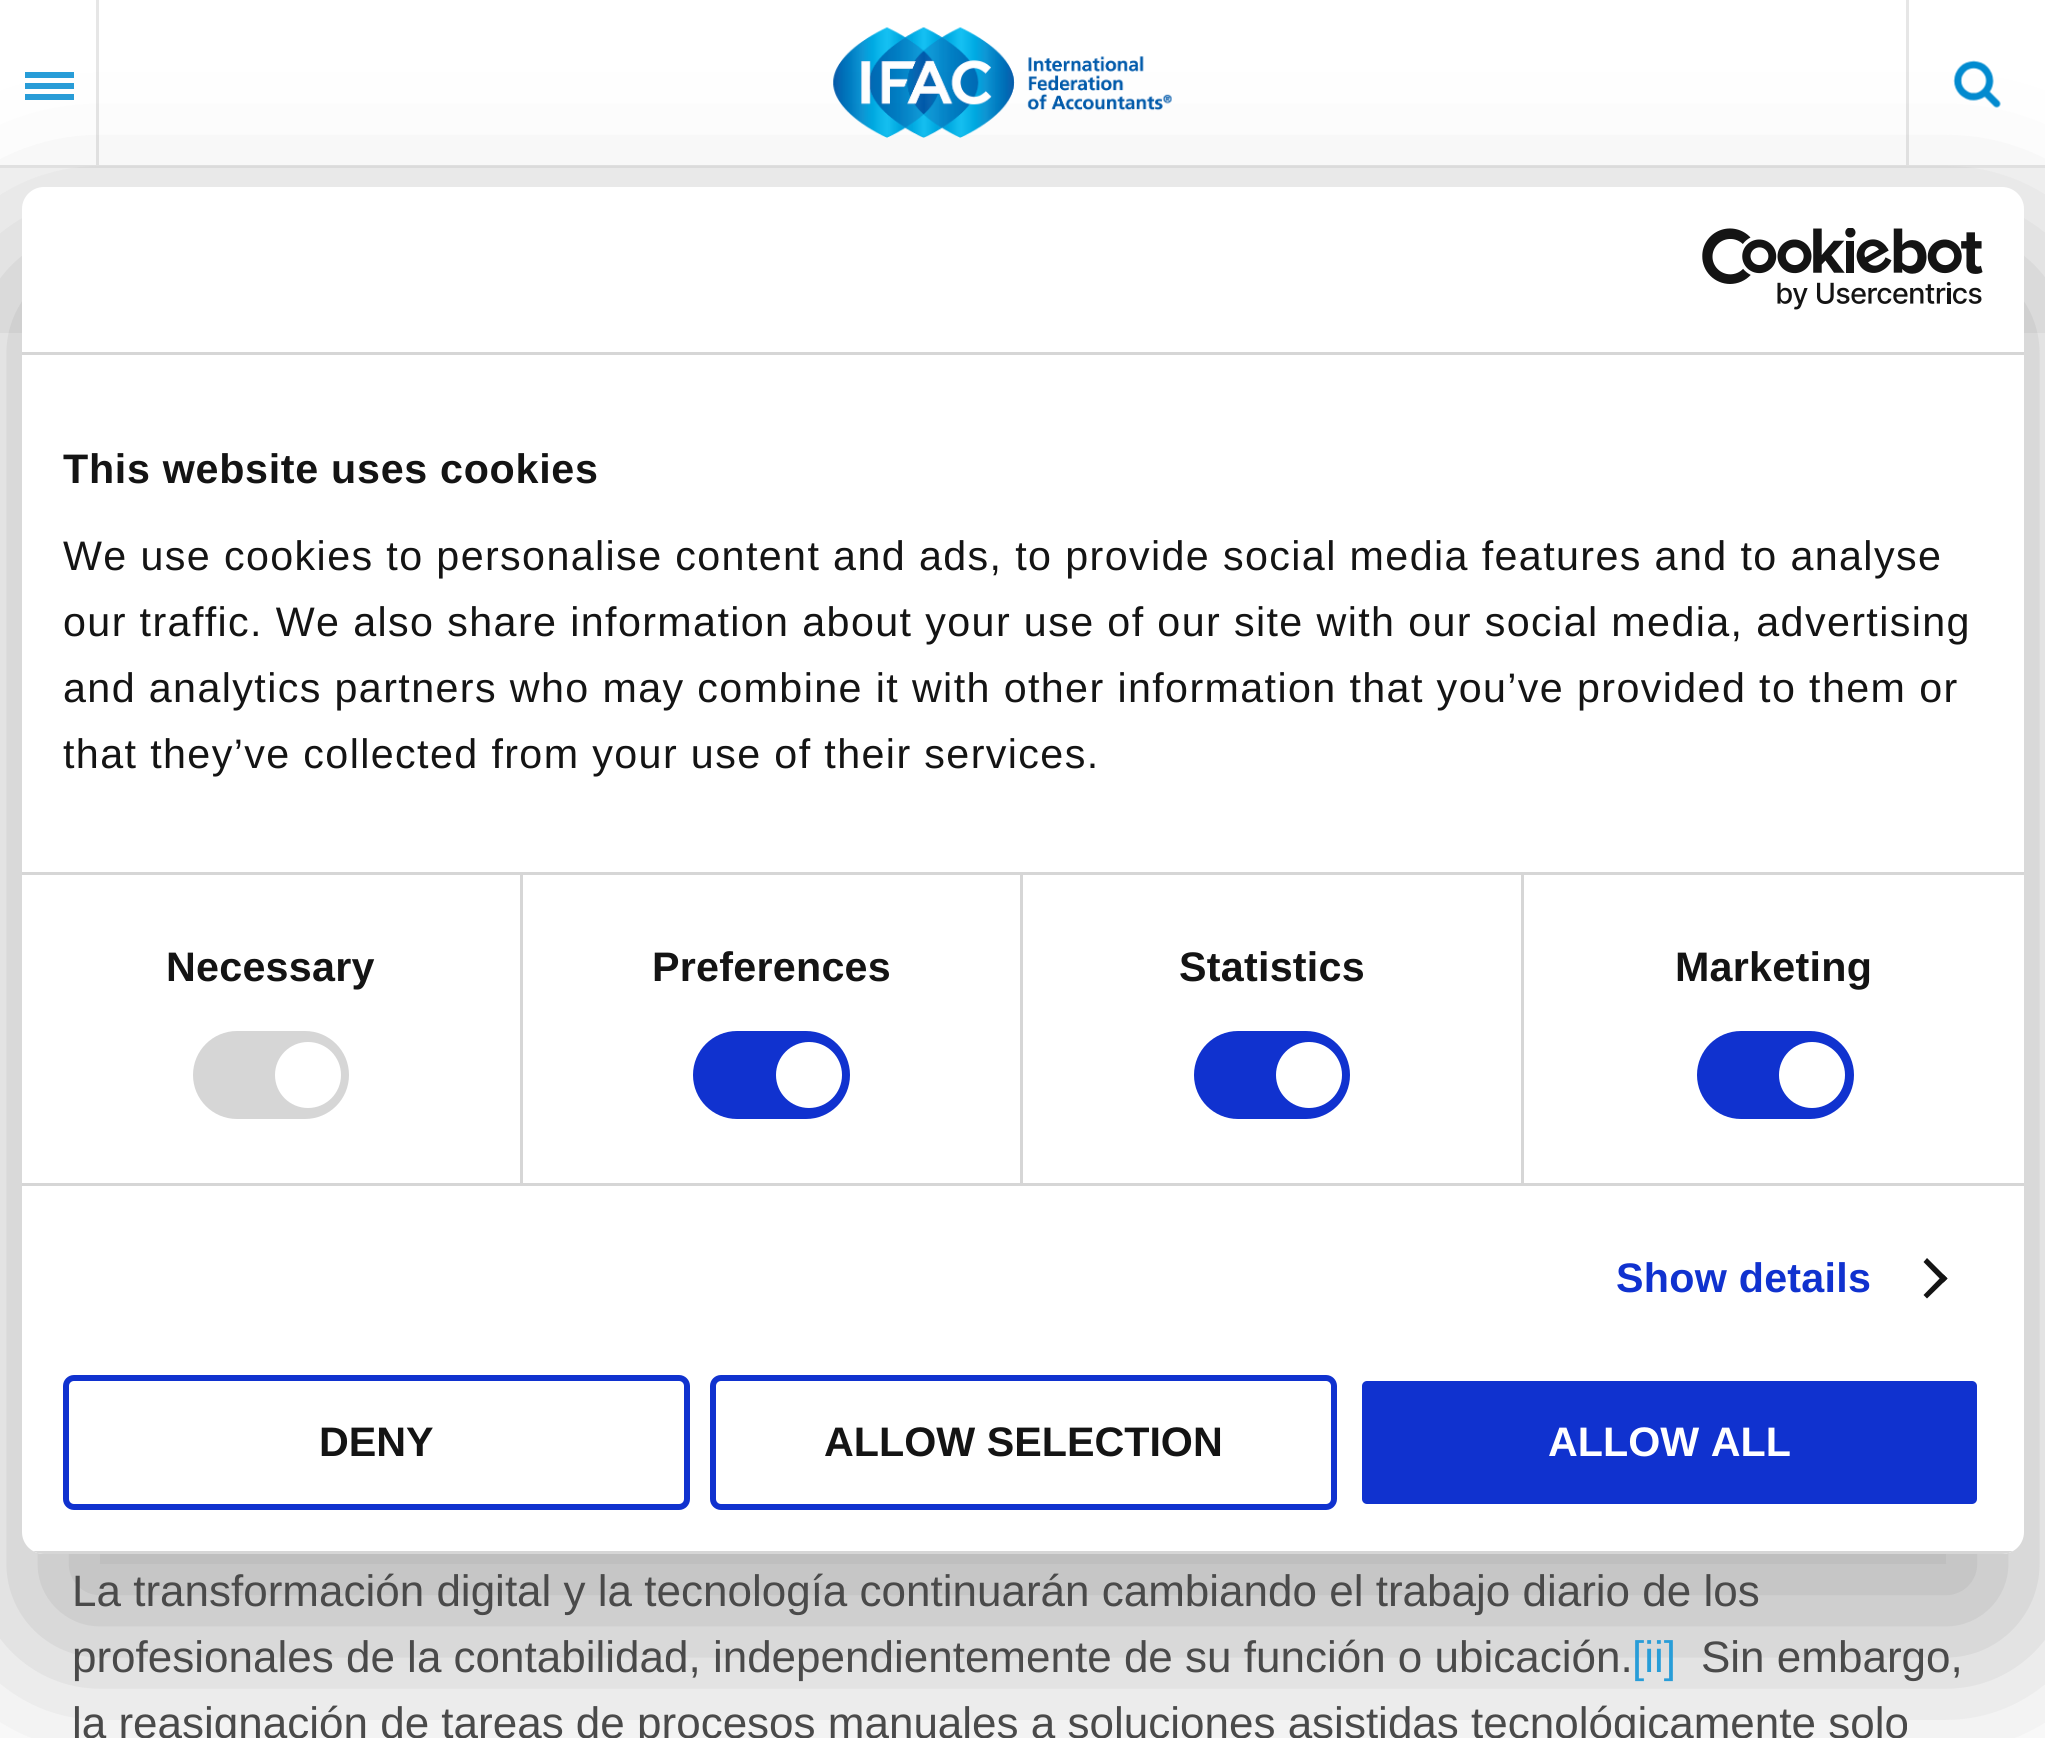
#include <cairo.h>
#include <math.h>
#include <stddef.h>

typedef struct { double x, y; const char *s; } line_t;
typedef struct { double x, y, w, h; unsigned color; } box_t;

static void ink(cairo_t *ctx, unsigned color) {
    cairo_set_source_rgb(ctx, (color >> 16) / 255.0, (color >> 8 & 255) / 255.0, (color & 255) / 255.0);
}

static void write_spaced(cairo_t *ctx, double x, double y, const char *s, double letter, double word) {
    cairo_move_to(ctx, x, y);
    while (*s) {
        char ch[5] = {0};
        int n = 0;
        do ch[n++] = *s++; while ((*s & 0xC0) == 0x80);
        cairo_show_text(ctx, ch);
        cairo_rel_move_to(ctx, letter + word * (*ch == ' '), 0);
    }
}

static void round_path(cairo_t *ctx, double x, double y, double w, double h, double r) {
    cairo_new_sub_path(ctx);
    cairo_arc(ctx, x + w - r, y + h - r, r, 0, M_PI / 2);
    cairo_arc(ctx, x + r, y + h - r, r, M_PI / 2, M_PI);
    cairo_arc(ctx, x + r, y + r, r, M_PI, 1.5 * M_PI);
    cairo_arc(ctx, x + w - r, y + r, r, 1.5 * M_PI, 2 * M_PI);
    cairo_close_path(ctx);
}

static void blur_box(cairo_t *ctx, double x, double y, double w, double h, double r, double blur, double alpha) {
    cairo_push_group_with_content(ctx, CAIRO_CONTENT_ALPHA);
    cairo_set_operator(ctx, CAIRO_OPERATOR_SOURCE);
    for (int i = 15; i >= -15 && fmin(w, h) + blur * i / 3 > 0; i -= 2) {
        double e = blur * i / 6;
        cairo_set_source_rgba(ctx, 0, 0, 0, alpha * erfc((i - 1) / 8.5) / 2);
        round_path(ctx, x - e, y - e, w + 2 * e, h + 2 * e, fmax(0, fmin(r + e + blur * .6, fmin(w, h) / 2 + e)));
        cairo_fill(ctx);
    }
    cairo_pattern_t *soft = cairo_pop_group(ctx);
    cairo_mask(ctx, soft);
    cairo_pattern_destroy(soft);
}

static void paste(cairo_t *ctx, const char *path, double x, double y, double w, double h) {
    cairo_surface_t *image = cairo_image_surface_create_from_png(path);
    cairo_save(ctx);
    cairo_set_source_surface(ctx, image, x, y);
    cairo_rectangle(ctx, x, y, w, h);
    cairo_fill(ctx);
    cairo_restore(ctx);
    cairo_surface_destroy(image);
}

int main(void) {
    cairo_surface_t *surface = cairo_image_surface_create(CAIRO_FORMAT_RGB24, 2045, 1738);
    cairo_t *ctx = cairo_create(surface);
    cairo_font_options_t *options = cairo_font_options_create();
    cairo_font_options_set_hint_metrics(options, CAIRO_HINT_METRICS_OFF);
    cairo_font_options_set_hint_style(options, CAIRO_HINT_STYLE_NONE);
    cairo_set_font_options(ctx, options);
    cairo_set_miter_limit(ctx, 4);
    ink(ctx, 0xF5F5F5);
    cairo_paint(ctx);
    {
        static const box_t items[] = {
            {0, 0, 2045, 165, 0xFFFFFF},
            {0, 165, 2045, 3, 0xE6E6E6},
            {96, 0, 3, 165, 0xE6E6E6},
            {25, 72, 49, 6, 0x289DD8},
            {25, 83, 49, 6, 0x289DD8},
            {25, 94, 49, 6, 0x289DD8},
        };
        for (size_t i = 0; i < sizeof items / sizeof *items; i++) {
            ink(ctx, items[i].color);
            cairo_rectangle(ctx, items[i].x, items[i].y, items[i].w, items[i].h);
            cairo_fill(ctx);
        }
    }
    paste(ctx, "media/2.png", 833, 27, 339, 111);
    ink(ctx, 0xE6E6E6);
    cairo_rectangle(ctx, 1906, 0, 3, 165);
    cairo_fill(ctx);
    paste(ctx, "media/3.png", 1953, 60, 48, 48);
    ink(ctx, 0xFFFFFF);
    cairo_rectangle(ctx, 0, 333, 2045, 1405);
    cairo_fill(ctx);
    ink(ctx, 0x000000);
    blur_box(ctx, 22, 275, 2002, 1367, 22, 93.5, 0.3);
    ink(ctx, 0xFFFFFF);
    round_path(ctx, 22, 187, 2002, 1367, 22);
    cairo_fill(ctx);
    ink(ctx, 0xD6D6D6);
    cairo_rectangle(ctx, 22, 352, 2002, 3);
    cairo_fill(ctx);
    paste(ctx, "media/1.png", 1702, 228, 281, 82);
    cairo_rectangle(ctx, 22, 872, 2002, 3);
    cairo_fill(ctx);
    cairo_select_font_face(ctx, "Liberation Sans", CAIRO_FONT_SLANT_NORMAL, CAIRO_FONT_WEIGHT_BOLD);
    cairo_set_font_size(ctx, 41.25);
    ink(ctx, 0x141414);
    write_spaced(ctx, 63, 483, "This website uses cookies", 0.7, 0);
    cairo_select_font_face(ctx, "Liberation Sans", CAIRO_FONT_SLANT_NORMAL, CAIRO_FONT_WEIGHT_NORMAL);
    {
        static const line_t items[] = {
            {63, 570, "We use cookies to personalise content and ads, to provide social media features and to analyse"},
            {63, 636, "our traffic. We also share information about your use of our site with our social media, advertising"},
            {63, 702, "and analytics partners who may combine it with other information that you’ve provided to them or"},
            {63, 768, "that they’ve collected from your use of their services."},
        };
        for (size_t i = 0; i < sizeof items / sizeof *items; i++) {
            write_spaced(ctx, items[i].x, items[i].y, items[i].s, 1.38, 0);
        }
    }
    ink(ctx, 0xD6D6D6);
    cairo_rectangle(ctx, 22, 1183, 2002, 3);
    cairo_fill(ctx);
    cairo_rectangle(ctx, 520, 875, 3, 308);
    cairo_fill(ctx);
    cairo_select_font_face(ctx, "Liberation Sans", CAIRO_FONT_SLANT_NORMAL, CAIRO_FONT_WEIGHT_BOLD);
    ink(ctx, 0x141414);
    write_spaced(ctx, 166, 981, "Necessary", 0.25, 0);
    ink(ctx, 0xD6D6D6);
    round_path(ctx, 193, 1031, 156, 88, 44);
    cairo_fill(ctx);
    ink(ctx, 0xFFFFFF);
    cairo_arc(ctx, 308, 1075, 33, 0, 2 * M_PI);
    cairo_fill(ctx);
    ink(ctx, 0xD6D6D6);
    cairo_rectangle(ctx, 1020, 875, 3, 308);
    cairo_fill(ctx);
    ink(ctx, 0x141414);
    write_spaced(ctx, 652, 981, "Preferences", 0.25, 0);
    ink(ctx, 0x1032CF);
    round_path(ctx, 693, 1031, 157, 88, 44);
    cairo_fill(ctx);
    ink(ctx, 0xFFFFFF);
    cairo_arc(ctx, 809, 1075, 33, 0, 2 * M_PI);
    cairo_fill(ctx);
    ink(ctx, 0xD6D6D6);
    cairo_rectangle(ctx, 1521, 875, 3, 308);
    cairo_fill(ctx);
    ink(ctx, 0x141414);
    write_spaced(ctx, 1179, 981, "Statistics", 0.25, 0);
    ink(ctx, 0x1032CF);
    round_path(ctx, 1194, 1031, 156, 88, 44);
    cairo_fill(ctx);
    ink(ctx, 0xFFFFFF);
    cairo_arc(ctx, 1309, 1075, 33, 0, 2 * M_PI);
    cairo_fill(ctx);
    ink(ctx, 0x141414);
    write_spaced(ctx, 1675, 981, "Marketing", 0.25, 0);
    ink(ctx, 0x1032CF);
    round_path(ctx, 1697, 1031, 157, 88, 44);
    cairo_fill(ctx);
    ink(ctx, 0xFFFFFF);
    cairo_arc(ctx, 1812, 1075, 33, 0, 2 * M_PI);
    cairo_fill(ctx);
    ink(ctx, 0x1032CF);
    write_spaced(ctx, 1616, 1292, "Show details", 0.25, 0);
    ink(ctx, 0x141414);
    cairo_new_path(ctx);
    cairo_move_to(ctx, 1927, 1258);
    cairo_line_to(ctx, 1947.5, 1278.5);
    cairo_line_to(ctx, 1943.5, 1282.5);
    cairo_line_to(ctx, 1923.5, 1262);
    cairo_close_path(ctx);
    cairo_fill(ctx);
    cairo_new_path(ctx);
    cairo_move_to(ctx, 1943.5, 1274.5);
    cairo_line_to(ctx, 1947.5, 1278.5);
    cairo_line_to(ctx, 1927, 1298.5);
    cairo_line_to(ctx, 1923.5, 1295);
    cairo_close_path(ctx);
    cairo_fill(ctx);
    cairo_save(ctx);
    round_path(ctx, 22, 187, 2002, 1367, 22);
    cairo_clip(ctx);
    ink(ctx, 0xD6D6D6);
    cairo_rectangle(ctx, 33, 1551, 1980, 3);
    cairo_fill(ctx);
    cairo_restore(ctx);
    round_path(ctx, 66, 1378, 621, 129, 8);
    ink(ctx, 0x1032CF);
    cairo_set_line_width(ctx, 6);
    cairo_stroke(ctx);
    ink(ctx, 0x141414);
    cairo_move_to(ctx, 319, 1456);
    cairo_show_text(ctx, "DENY");
    round_path(ctx, 713, 1378, 621, 129, 8);
    ink(ctx, 0x1032CF);
    cairo_stroke(ctx);
    ink(ctx, 0x141414);
    cairo_move_to(ctx, 824, 1456);
    cairo_show_text(ctx, "ALLOW SELECTION");
    ink(ctx, 0x1032CF);
    round_path(ctx, 1359, 1378, 621, 129, 8);
    cairo_fill_preserve(ctx);
    ink(ctx, 0xFFFFFF);
    cairo_stroke(ctx);
    cairo_move_to(ctx, 1548, 1456);
    cairo_show_text(ctx, "ALLOW ALL");
    cairo_select_font_face(ctx, "Liberation Sans", CAIRO_FONT_SLANT_NORMAL, CAIRO_FONT_WEIGHT_NORMAL);
    cairo_set_font_size(ctx, 44);
    ink(ctx, 0x4A4A4A);
    cairo_move_to(ctx, 72, 1606);
    cairo_show_text(ctx, "La transformación digital y la tecnología continuarán cambiando el trabajo diario de los");
    cairo_move_to(ctx, 72, 1672);
    cairo_show_text(ctx, "profesionales de la contabilidad, independientemente de su función o ubicación.");
    ink(ctx, 0x289DD8);
    cairo_move_to(ctx, 1632, 1672);
    cairo_show_text(ctx, "[ii]");
    ink(ctx, 0x4A4A4A);
    cairo_move_to(ctx, 1701, 1672);
    cairo_show_text(ctx, "Sin embargo,");
    cairo_move_to(ctx, 72, 1738);
    cairo_show_text(ctx, "la reasignación de tareas de procesos manuales a soluciones asistidas tecnológicamente solo");
    cairo_surface_write_to_png(surface, "image.png");
    cairo_font_options_destroy(options);
    cairo_destroy(ctx);
    cairo_surface_destroy(surface);
    return 0;
}
